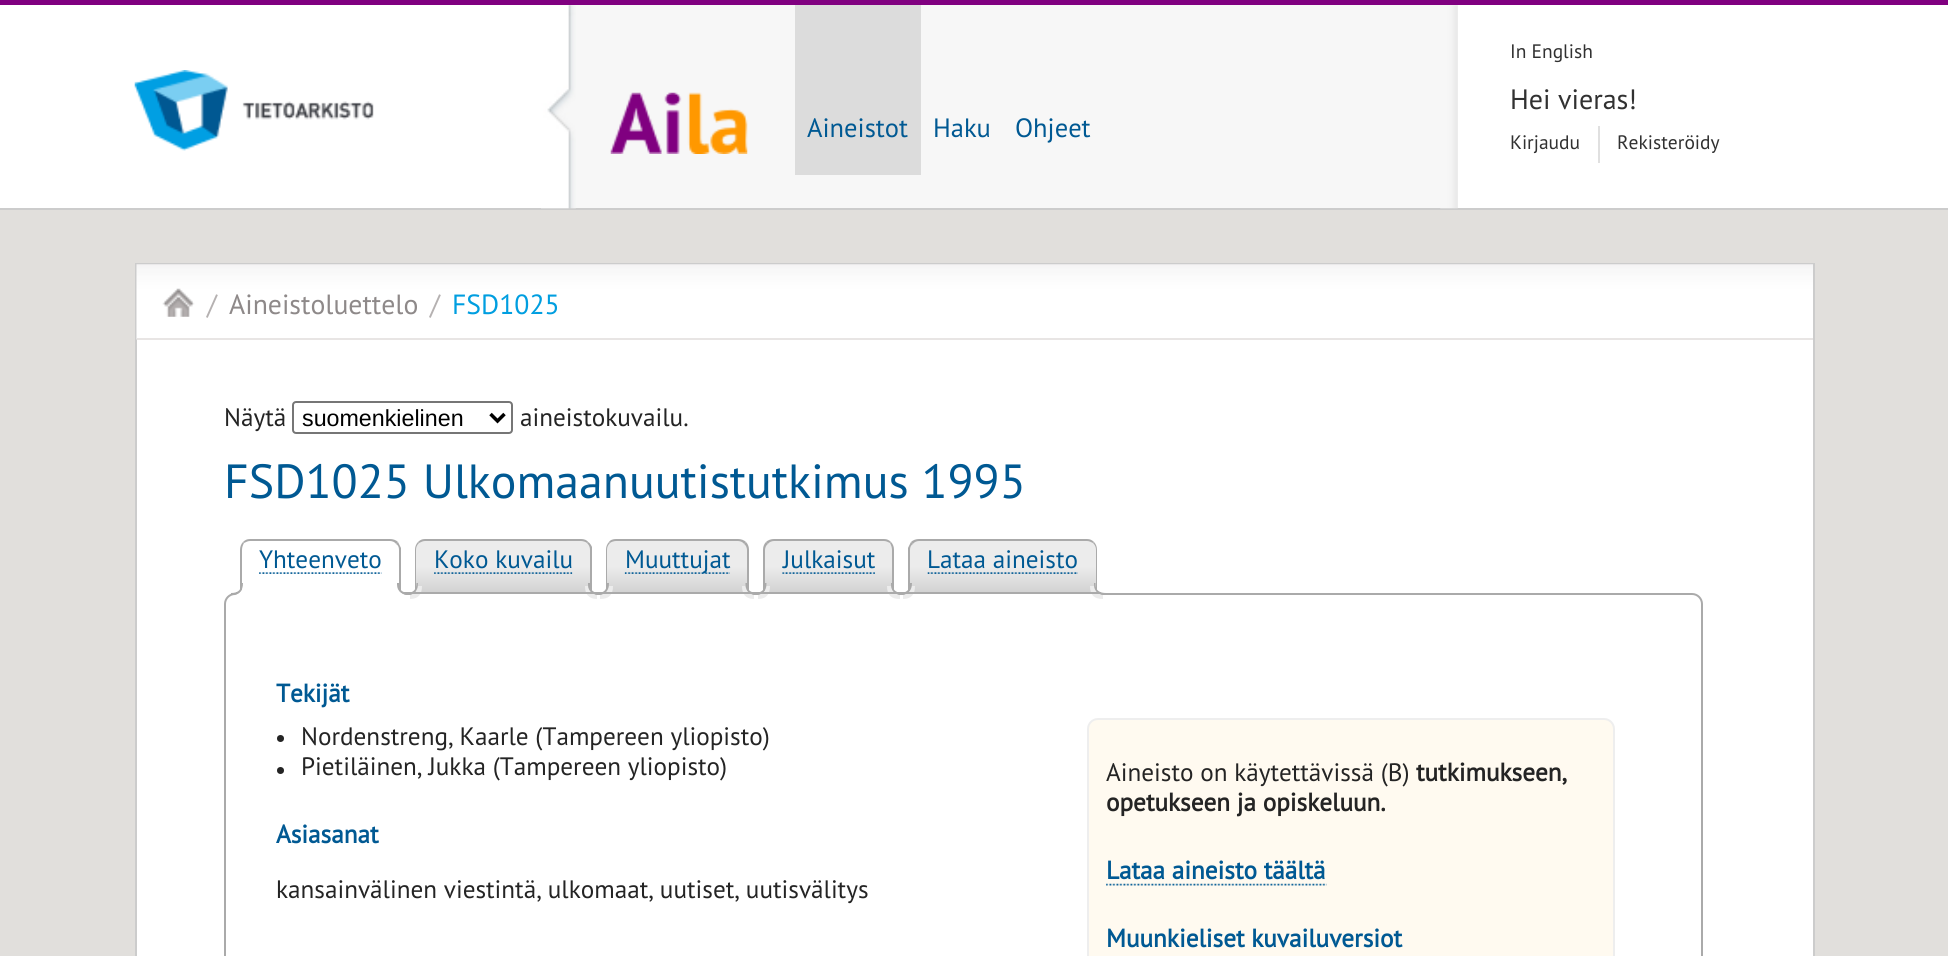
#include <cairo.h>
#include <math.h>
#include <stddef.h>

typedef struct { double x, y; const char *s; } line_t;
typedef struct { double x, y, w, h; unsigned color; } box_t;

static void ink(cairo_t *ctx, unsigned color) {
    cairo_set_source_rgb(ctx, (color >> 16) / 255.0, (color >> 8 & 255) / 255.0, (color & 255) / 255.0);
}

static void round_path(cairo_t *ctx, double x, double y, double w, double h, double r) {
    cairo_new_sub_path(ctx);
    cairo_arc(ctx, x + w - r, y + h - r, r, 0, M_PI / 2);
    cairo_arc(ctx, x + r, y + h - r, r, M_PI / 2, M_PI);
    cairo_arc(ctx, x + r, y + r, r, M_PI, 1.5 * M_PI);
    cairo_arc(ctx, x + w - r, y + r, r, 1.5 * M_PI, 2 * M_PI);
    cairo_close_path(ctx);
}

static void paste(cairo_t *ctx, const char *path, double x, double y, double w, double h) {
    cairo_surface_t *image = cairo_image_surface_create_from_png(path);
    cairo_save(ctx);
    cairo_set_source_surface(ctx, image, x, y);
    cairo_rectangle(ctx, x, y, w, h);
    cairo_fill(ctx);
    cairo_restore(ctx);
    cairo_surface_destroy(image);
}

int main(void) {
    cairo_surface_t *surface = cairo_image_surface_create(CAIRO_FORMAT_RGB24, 1948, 956);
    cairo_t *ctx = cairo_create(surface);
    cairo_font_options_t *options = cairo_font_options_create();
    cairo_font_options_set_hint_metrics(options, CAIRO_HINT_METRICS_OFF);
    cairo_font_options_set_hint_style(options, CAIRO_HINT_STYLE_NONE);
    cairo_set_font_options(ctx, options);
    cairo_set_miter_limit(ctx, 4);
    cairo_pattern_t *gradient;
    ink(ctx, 0xE1DFDC);
    cairo_paint(ctx);
    {
        static const box_t items[] = {
            {0, 5, 1948, 203, 0xFFFFFF},
            {0, 0, 1948, 5, 0x800080},
            {0, 208, 1948, 2, 0xCCCCCC},
        };
        for (size_t i = 0; i < sizeof items / sizeof *items; i++) {
            ink(ctx, items[i].color);
            cairo_rectangle(ctx, items[i].x, items[i].y, items[i].w, items[i].h);
            cairo_fill(ctx);
        }
    }
    paste(ctx, "media/1.png", 134, 70, 240, 81);
    ink(ctx, 0xF7F7F7);
    cairo_rectangle(ctx, 541, 5, 917, 203);
    cairo_fill(ctx);
    paste(ctx, "media/2.png", 541, 5, 35, 204);
    paste(ctx, "media/3.png", 610, 92, 138, 62);
    paste(ctx, "media/4.png", 1440, 5, 18, 204);
    ink(ctx, 0xDCDCDC);
    cairo_rectangle(ctx, 795, 5, 126, 170);
    cairo_fill(ctx);
    cairo_select_font_face(ctx, "PT Sans", CAIRO_FONT_SLANT_NORMAL, CAIRO_FONT_WEIGHT_NORMAL);
    cairo_set_font_size(ctx, 26.5);
    ink(ctx, 0x005993);
    {
        static const line_t items[] = {
            {807, 137, "Aineistot"},
            {933, 137, "Haku"},
            {1015, 137, "Ohjeet"},
        };
        for (size_t i = 0; i < sizeof items / sizeof *items; i++) {
            cairo_move_to(ctx, items[i].x, items[i].y);
            cairo_show_text(ctx, items[i].s);
        }
    }
    cairo_set_font_size(ctx, 19.5);
    ink(ctx, 0x313131);
    cairo_move_to(ctx, 1510, 58);
    cairo_show_text(ctx, "In English");
    cairo_set_font_size(ctx, 28);
    cairo_move_to(ctx, 1510, 109);
    cairo_show_text(ctx, "Hei vieras!");
    cairo_set_font_size(ctx, 19.5);
    cairo_move_to(ctx, 1510, 149);
    cairo_show_text(ctx, "Kirjaudu");
    ink(ctx, 0xE0E0E0);
    cairo_rectangle(ctx, 1598, 126, 2, 37);
    cairo_fill(ctx);
    ink(ctx, 0x313131);
    cairo_move_to(ctx, 1617, 149);
    cairo_show_text(ctx, "Rekisteröidy");
    ink(ctx, 0xFFFFFF);
    cairo_rectangle(ctx, 137, 340, 1676, 616);
    cairo_fill(ctx);
    cairo_rectangle(ctx, 136, 264, 1678, 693);
    ink(ctx, 0xCCCCCC);
    cairo_stroke(ctx);
    paste(ctx, "media/5.png", 136, 264, 1677, 76);
    ink(ctx, 0xE8E5E4);
    cairo_rectangle(ctx, 137, 338, 1676, 2);
    cairo_fill(ctx);
    paste(ctx, "media/6.png", 162, 288, 33, 29);
    cairo_set_font_size(ctx, 27.75);
    ink(ctx, 0xB5B1B1);
    cairo_move_to(ctx, 207, 314);
    cairo_show_text(ctx, "/");
    ink(ctx, 0x8E8989);
    cairo_move_to(ctx, 229, 314);
    cairo_show_text(ctx, "Aineistoluettelo");
    ink(ctx, 0xB5B1B1);
    cairo_move_to(ctx, 430, 314);
    cairo_show_text(ctx, "/");
    ink(ctx, 0x009EE0);
    cairo_move_to(ctx, 452, 314);
    cairo_show_text(ctx, "FSD1025");
    cairo_set_font_size(ctx, 25.2);
    ink(ctx, 0x242424);
    cairo_move_to(ctx, 224, 426);
    cairo_show_text(ctx, "Näytä");
    round_path(ctx, 293, 402, 219, 31, 3);
    ink(ctx, 0x767676);
    cairo_stroke(ctx);
    cairo_new_path(ctx);
    cairo_move_to(ctx, 490.5, 414);
    cairo_line_to(ctx, 497.5, 421);
    cairo_line_to(ctx, 504.5, 414);
    ink(ctx, 0x000000);
    cairo_set_line_width(ctx, 3.5);
    cairo_stroke(ctx);
    cairo_select_font_face(ctx, "Liberation Sans", CAIRO_FONT_SLANT_NORMAL, CAIRO_FONT_WEIGHT_NORMAL);
    cairo_set_font_size(ctx, 23.25);
    cairo_move_to(ctx, 302, 426);
    cairo_show_text(ctx, "suomenkielinen");
    cairo_select_font_face(ctx, "PT Sans", CAIRO_FONT_SLANT_NORMAL, CAIRO_FONT_WEIGHT_NORMAL);
    cairo_set_font_size(ctx, 25.2);
    ink(ctx, 0x242424);
    cairo_move_to(ctx, 520, 426);
    cairo_show_text(ctx, "aineistokuvailu.");
    cairo_set_font_size(ctx, 47.9);
    ink(ctx, 0x005993);
    cairo_move_to(ctx, 224, 498);
    cairo_show_text(ctx, "FSD1025 Ulkomaanuutistutkimus 1995");
    cairo_save(ctx);
    cairo_new_path(ctx);
    cairo_move_to(ctx, 426, 539);
    cairo_line_to(ctx, 581, 539);
    cairo_curve_to(ctx, 587, 539, 592, 544, 592, 550);
    cairo_line_to(ctx, 592, 595);
    cairo_line_to(ctx, 415, 595);
    cairo_line_to(ctx, 415, 550);
    cairo_curve_to(ctx, 415, 544, 420, 539, 426, 539);
    cairo_close_path(ctx);
    cairo_clip(ctx);
    gradient = cairo_pattern_create_linear(503, 541, 503, 593);
    cairo_pattern_add_color_stop_rgba(gradient, 0.5, 0.925, 0.925, 0.925, 1);
    cairo_pattern_add_color_stop_rgba(gradient, 1, 0.82, 0.82, 0.82, 1);
    cairo_set_source(ctx, gradient);
    cairo_pattern_destroy(gradient);
    cairo_rectangle(ctx, 415, 541, 177, 51);
    cairo_fill(ctx);
    cairo_restore(ctx);
    ink(ctx, 0xAAAAAA);
    cairo_new_path(ctx);
    cairo_move_to(ctx, 425, 539);
    cairo_curve_to(ctx, 422, 539, 420, 540, 418, 542);
    cairo_line_to(ctx, 419, 543);
    cairo_curve_to(ctx, 421, 542, 423, 541, 425, 541);
    cairo_line_to(ctx, 581, 541);
    cairo_curve_to(ctx, 583, 541, 586, 542, 587, 543);
    cairo_line_to(ctx, 588, 542);
    cairo_curve_to(ctx, 587, 540, 584, 539, 581, 539);
    cairo_close_path(ctx);
    cairo_fill(ctx);
    round_path(ctx, 225, 594, 1477, 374, 10);
    cairo_set_line_width(ctx, 2);
    cairo_stroke(ctx);
    cairo_new_path(ctx);
    cairo_move_to(ctx, 592, 547);
    cairo_line_to(ctx, 592, 595);
    cairo_line_to(ctx, 590, 593);
    cairo_line_to(ctx, 590, 550);
    cairo_curve_to(ctx, 590, 547, 589, 545, 587, 543);
    cairo_line_to(ctx, 588, 542);
    cairo_curve_to(ctx, 590, 543, 591, 545, 592, 547);
    cairo_close_path(ctx);
    cairo_fill(ctx);
    ink(ctx, 0xFFFFFF);
    cairo_new_path(ctx);
    cairo_move_to(ctx, 592, 595);
    cairo_line_to(ctx, 590, 593);
    cairo_line_to(ctx, 417, 593);
    cairo_line_to(ctx, 415, 595);
    cairo_close_path(ctx);
    cairo_fill(ctx);
    ink(ctx, 0xAAAAAA);
    cairo_new_path(ctx);
    cairo_move_to(ctx, 418, 542);
    cairo_curve_to(ctx, 416, 544, 415, 547, 415, 550);
    cairo_line_to(ctx, 415, 595);
    cairo_line_to(ctx, 417, 593);
    cairo_line_to(ctx, 416, 593);
    cairo_line_to(ctx, 416, 550);
    cairo_curve_to(ctx, 416, 547, 417, 545, 419, 543);
    cairo_close_path(ctx);
    cairo_fill(ctx);
    ink(ctx, 0xECECEC);
    cairo_new_path(ctx);
    cairo_move_to(ctx, 410, 595);
    cairo_line_to(ctx, 410, 599);
    cairo_curve_to(ctx, 418.5, 599, 422, 594, 422, 586);
    cairo_line_to(ctx, 418, 586);
    cairo_curve_to(ctx, 417.5, 590.5, 414, 594, 410, 595);
    cairo_close_path(ctx);
    cairo_fill(ctx);
    ink(ctx, 0xAAAAAA);
    cairo_set_fill_rule(ctx, CAIRO_FILL_RULE_EVEN_ODD);
    cairo_new_path(ctx);
    cairo_move_to(ctx, 406, 583);
    cairo_line_to(ctx, 418, 583);
    cairo_curve_to(ctx, 418, 591, 414, 595, 406, 595);
    cairo_close_path(ctx);
    cairo_move_to(ctx, 406, 583);
    cairo_line_to(ctx, 416.5, 583);
    cairo_curve_to(ctx, 416.5, 590, 413, 593, 406, 593);
    cairo_close_path(ctx);
    cairo_fill(ctx);
    ink(ctx, 0xECECEC);
    cairo_set_fill_rule(ctx, CAIRO_FILL_RULE_WINDING);
    cairo_new_path(ctx);
    cairo_move_to(ctx, 585, 586);
    cairo_curve_to(ctx, 585, 594, 588.5, 599, 597, 599);
    cairo_line_to(ctx, 597, 595);
    cairo_curve_to(ctx, 592.5, 594, 589, 590.5, 588, 586);
    cairo_close_path(ctx);
    cairo_fill(ctx);
    ink(ctx, 0xAAAAAA);
    cairo_set_fill_rule(ctx, CAIRO_FILL_RULE_EVEN_ODD);
    cairo_new_path(ctx);
    cairo_move_to(ctx, 588, 583);
    cairo_line_to(ctx, 600, 583);
    cairo_line_to(ctx, 600, 595);
    cairo_curve_to(ctx, 593.5, 595, 588, 592, 588, 584.5);
    cairo_close_path(ctx);
    cairo_move_to(ctx, 590, 583);
    cairo_line_to(ctx, 600, 583);
    cairo_line_to(ctx, 600, 593);
    cairo_curve_to(ctx, 594.5, 593, 590, 591, 590, 584.5);
    cairo_close_path(ctx);
    cairo_fill(ctx);
    cairo_save(ctx);
    cairo_set_fill_rule(ctx, CAIRO_FILL_RULE_WINDING);
    cairo_new_path(ctx);
    cairo_move_to(ctx, 617, 539);
    cairo_line_to(ctx, 738, 539);
    cairo_curve_to(ctx, 744, 539, 749, 544, 749, 550);
    cairo_line_to(ctx, 749, 595);
    cairo_line_to(ctx, 606, 595);
    cairo_line_to(ctx, 606, 550);
    cairo_curve_to(ctx, 606, 544, 611, 539, 617, 539);
    cairo_close_path(ctx);
    cairo_clip(ctx);
    gradient = cairo_pattern_create_linear(677, 541, 677, 593);
    cairo_pattern_add_color_stop_rgba(gradient, 0.5, 0.925, 0.925, 0.925, 1);
    cairo_pattern_add_color_stop_rgba(gradient, 1, 0.82, 0.82, 0.82, 1);
    cairo_set_source(ctx, gradient);
    cairo_pattern_destroy(gradient);
    cairo_rectangle(ctx, 606, 541, 143, 51);
    cairo_fill(ctx);
    cairo_restore(ctx);
    cairo_set_fill_rule(ctx, CAIRO_FILL_RULE_WINDING);
    cairo_new_path(ctx);
    cairo_move_to(ctx, 616, 539);
    cairo_curve_to(ctx, 613, 539, 610, 540, 609, 542);
    cairo_line_to(ctx, 610, 543);
    cairo_curve_to(ctx, 611, 542, 614, 541, 616, 541);
    cairo_line_to(ctx, 738, 541);
    cairo_curve_to(ctx, 740, 541, 743, 542, 744, 544);
    cairo_line_to(ctx, 746, 542);
    cairo_curve_to(ctx, 744, 540, 741, 539, 738, 539);
    cairo_close_path(ctx);
    cairo_fill(ctx);
    cairo_new_path(ctx);
    cairo_move_to(ctx, 749, 595);
    cairo_line_to(ctx, 749, 550);
    cairo_curve_to(ctx, 749, 547, 748, 544, 746, 542);
    cairo_line_to(ctx, 744, 544);
    cairo_curve_to(ctx, 746, 545, 747, 548, 747, 550);
    cairo_line_to(ctx, 747, 593);
    cairo_close_path(ctx);
    cairo_fill(ctx);
    ink(ctx, 0xFFFFFF);
    cairo_new_path(ctx);
    cairo_move_to(ctx, 749, 595);
    cairo_line_to(ctx, 747, 593);
    cairo_line_to(ctx, 608, 593);
    cairo_line_to(ctx, 606, 595);
    cairo_close_path(ctx);
    cairo_fill(ctx);
    ink(ctx, 0xAAAAAA);
    cairo_new_path(ctx);
    cairo_move_to(ctx, 609, 542);
    cairo_curve_to(ctx, 607, 544, 606, 547, 606, 550);
    cairo_line_to(ctx, 606, 594);
    cairo_line_to(ctx, 608, 593);
    cairo_line_to(ctx, 607, 593);
    cairo_line_to(ctx, 607, 550);
    cairo_curve_to(ctx, 607, 547, 608, 545, 610, 543);
    cairo_close_path(ctx);
    cairo_fill(ctx);
    ink(ctx, 0xECECEC);
    cairo_new_path(ctx);
    cairo_move_to(ctx, 600, 595);
    cairo_line_to(ctx, 600, 599);
    cairo_curve_to(ctx, 609, 599, 613, 595, 613, 586);
    cairo_line_to(ctx, 609, 586);
    cairo_curve_to(ctx, 608, 590.5, 604.5, 594, 600, 595);
    cairo_close_path(ctx);
    cairo_fill(ctx);
    ink(ctx, 0xAAAAAA);
    cairo_set_fill_rule(ctx, CAIRO_FILL_RULE_EVEN_ODD);
    cairo_new_path(ctx);
    cairo_move_to(ctx, 597, 583);
    cairo_line_to(ctx, 609, 583);
    cairo_curve_to(ctx, 609, 591, 605, 595, 597, 595);
    cairo_close_path(ctx);
    cairo_move_to(ctx, 597, 583);
    cairo_line_to(ctx, 607, 583);
    cairo_curve_to(ctx, 607, 590, 604, 593, 597, 593);
    cairo_close_path(ctx);
    cairo_fill(ctx);
    ink(ctx, 0xECECEC);
    cairo_set_fill_rule(ctx, CAIRO_FILL_RULE_WINDING);
    cairo_new_path(ctx);
    cairo_move_to(ctx, 742, 586);
    cairo_curve_to(ctx, 742, 594, 745.5, 599, 754, 599);
    cairo_line_to(ctx, 754, 595);
    cairo_curve_to(ctx, 749.5, 594, 746, 590.5, 745.5, 586);
    cairo_close_path(ctx);
    cairo_fill(ctx);
    ink(ctx, 0xAAAAAA);
    cairo_set_fill_rule(ctx, CAIRO_FILL_RULE_EVEN_ODD);
    cairo_new_path(ctx);
    cairo_move_to(ctx, 745.5, 583);
    cairo_line_to(ctx, 758, 583);
    cairo_line_to(ctx, 758, 595);
    cairo_curve_to(ctx, 751, 595, 745.5, 592, 745.5, 584.5);
    cairo_close_path(ctx);
    cairo_move_to(ctx, 747, 583);
    cairo_line_to(ctx, 758, 583);
    cairo_line_to(ctx, 758, 593);
    cairo_curve_to(ctx, 752, 593, 747, 591, 747, 584.5);
    cairo_close_path(ctx);
    cairo_fill(ctx);
    cairo_save(ctx);
    cairo_set_fill_rule(ctx, CAIRO_FILL_RULE_WINDING);
    cairo_new_path(ctx);
    cairo_move_to(ctx, 774, 539);
    cairo_line_to(ctx, 883, 539);
    cairo_curve_to(ctx, 889, 539, 894, 544, 894, 550);
    cairo_line_to(ctx, 894, 595);
    cairo_line_to(ctx, 763, 595);
    cairo_line_to(ctx, 763, 550);
    cairo_curve_to(ctx, 763, 544, 768, 539, 774, 539);
    cairo_close_path(ctx);
    cairo_clip(ctx);
    gradient = cairo_pattern_create_linear(829, 541, 829, 593);
    cairo_pattern_add_color_stop_rgba(gradient, 0.5, 0.925, 0.925, 0.925, 1);
    cairo_pattern_add_color_stop_rgba(gradient, 1, 0.82, 0.82, 0.82, 1);
    cairo_set_source(ctx, gradient);
    cairo_pattern_destroy(gradient);
    cairo_rectangle(ctx, 763, 541, 131, 51);
    cairo_fill(ctx);
    cairo_restore(ctx);
    cairo_set_fill_rule(ctx, CAIRO_FILL_RULE_WINDING);
    cairo_new_path(ctx);
    cairo_move_to(ctx, 774, 539);
    cairo_curve_to(ctx, 771, 539, 768, 540, 766, 542);
    cairo_line_to(ctx, 768, 544);
    cairo_curve_to(ctx, 769, 542, 772, 541, 774, 541);
    cairo_line_to(ctx, 884, 541);
    cairo_curve_to(ctx, 886, 541, 888, 542, 890, 543);
    cairo_line_to(ctx, 891, 542);
    cairo_curve_to(ctx, 889, 540, 887, 539, 884, 539);
    cairo_close_path(ctx);
    cairo_fill(ctx);
    cairo_new_path(ctx);
    cairo_move_to(ctx, 891, 542);
    cairo_curve_to(ctx, 893, 544, 894, 547, 894, 550);
    cairo_line_to(ctx, 894, 595);
    cairo_line_to(ctx, 892, 593);
    cairo_line_to(ctx, 892, 550);
    cairo_curve_to(ctx, 892, 547, 891, 545, 890, 543);
    cairo_close_path(ctx);
    cairo_fill(ctx);
    ink(ctx, 0xFFFFFF);
    cairo_new_path(ctx);
    cairo_move_to(ctx, 894, 595);
    cairo_line_to(ctx, 892, 593);
    cairo_line_to(ctx, 765, 593);
    cairo_line_to(ctx, 763, 595);
    cairo_close_path(ctx);
    cairo_fill(ctx);
    ink(ctx, 0xAAAAAA);
    cairo_new_path(ctx);
    cairo_move_to(ctx, 763, 595);
    cairo_line_to(ctx, 765, 593);
    cairo_line_to(ctx, 765, 550);
    cairo_curve_to(ctx, 765, 548, 766, 545, 768, 544);
    cairo_line_to(ctx, 766, 542);
    cairo_curve_to(ctx, 764, 544, 763, 547, 763, 550);
    cairo_close_path(ctx);
    cairo_fill(ctx);
    ink(ctx, 0xECECEC);
    cairo_new_path(ctx);
    cairo_move_to(ctx, 758, 595);
    cairo_line_to(ctx, 758, 599);
    cairo_curve_to(ctx, 766.5, 599, 770, 594, 770, 586);
    cairo_line_to(ctx, 766.5, 586);
    cairo_curve_to(ctx, 766, 590.5, 762.5, 594, 758, 595);
    cairo_close_path(ctx);
    cairo_fill(ctx);
    ink(ctx, 0xAAAAAA);
    cairo_set_fill_rule(ctx, CAIRO_FILL_RULE_EVEN_ODD);
    cairo_new_path(ctx);
    cairo_move_to(ctx, 754, 583);
    cairo_line_to(ctx, 766.5, 583);
    cairo_curve_to(ctx, 766.5, 591, 762.5, 595, 754, 595);
    cairo_close_path(ctx);
    cairo_move_to(ctx, 754, 583);
    cairo_line_to(ctx, 765, 583);
    cairo_curve_to(ctx, 765, 590, 761.5, 593, 754, 593);
    cairo_close_path(ctx);
    cairo_fill(ctx);
    ink(ctx, 0xECECEC);
    cairo_set_fill_rule(ctx, CAIRO_FILL_RULE_WINDING);
    cairo_new_path(ctx);
    cairo_move_to(ctx, 887, 586);
    cairo_curve_to(ctx, 887, 595, 891, 599, 900, 599);
    cairo_line_to(ctx, 900, 595);
    cairo_curve_to(ctx, 895.5, 594.5, 891.5, 590.5, 891, 586);
    cairo_close_path(ctx);
    cairo_fill(ctx);
    ink(ctx, 0xAAAAAA);
    cairo_set_fill_rule(ctx, CAIRO_FILL_RULE_EVEN_ODD);
    cairo_new_path(ctx);
    cairo_move_to(ctx, 891, 583);
    cairo_line_to(ctx, 903, 583);
    cairo_line_to(ctx, 903, 595);
    cairo_curve_to(ctx, 896.5, 595, 891, 592, 891, 584.5);
    cairo_close_path(ctx);
    cairo_move_to(ctx, 892.5, 583);
    cairo_line_to(ctx, 903, 583);
    cairo_line_to(ctx, 903, 593);
    cairo_curve_to(ctx, 897.5, 593, 892.5, 591, 892.5, 584.5);
    cairo_close_path(ctx);
    cairo_fill(ctx);
    cairo_save(ctx);
    cairo_set_fill_rule(ctx, CAIRO_FILL_RULE_WINDING);
    cairo_new_path(ctx);
    cairo_move_to(ctx, 919, 539);
    cairo_line_to(ctx, 1086, 539);
    cairo_curve_to(ctx, 1092, 539, 1097, 544, 1097, 550);
    cairo_line_to(ctx, 1097, 595);
    cairo_line_to(ctx, 908, 595);
    cairo_line_to(ctx, 908, 550);
    cairo_curve_to(ctx, 908, 544, 913, 539, 919, 539);
    cairo_close_path(ctx);
    cairo_clip(ctx);
    gradient = cairo_pattern_create_linear(1003, 541, 1003, 593);
    cairo_pattern_add_color_stop_rgba(gradient, 0.5, 0.925, 0.925, 0.925, 1);
    cairo_pattern_add_color_stop_rgba(gradient, 1, 0.82, 0.82, 0.82, 1);
    cairo_set_source(ctx, gradient);
    cairo_pattern_destroy(gradient);
    cairo_rectangle(ctx, 908, 541, 189, 51);
    cairo_fill(ctx);
    cairo_restore(ctx);
    cairo_set_fill_rule(ctx, CAIRO_FILL_RULE_WINDING);
    cairo_new_path(ctx);
    cairo_move_to(ctx, 919, 539);
    cairo_curve_to(ctx, 916, 539, 913, 540, 911, 542);
    cairo_line_to(ctx, 913, 544);
    cairo_curve_to(ctx, 914, 542, 917, 541, 919, 541);
    cairo_line_to(ctx, 1087, 541);
    cairo_curve_to(ctx, 1089, 541, 1091, 542, 1093, 543);
    cairo_line_to(ctx, 1094, 542);
    cairo_curve_to(ctx, 1092, 540, 1090, 539, 1087, 539);
    cairo_close_path(ctx);
    cairo_fill(ctx);
    cairo_new_path(ctx);
    cairo_move_to(ctx, 1094, 542);
    cairo_curve_to(ctx, 1096, 544, 1097, 547, 1097, 550);
    cairo_line_to(ctx, 1097, 595);
    cairo_line_to(ctx, 1095, 593);
    cairo_line_to(ctx, 1096, 593);
    cairo_line_to(ctx, 1096, 550);
    cairo_curve_to(ctx, 1096, 547, 1095, 545, 1093, 543);
    cairo_close_path(ctx);
    cairo_fill(ctx);
    ink(ctx, 0xFFFFFF);
    cairo_new_path(ctx);
    cairo_move_to(ctx, 908, 595);
    cairo_line_to(ctx, 1097, 595);
    cairo_line_to(ctx, 1095, 593);
    cairo_line_to(ctx, 910, 593);
    cairo_close_path(ctx);
    cairo_fill(ctx);
    ink(ctx, 0xAAAAAA);
    cairo_new_path(ctx);
    cairo_move_to(ctx, 908, 595);
    cairo_line_to(ctx, 908, 548);
    cairo_curve_to(ctx, 909, 546, 910, 544, 911, 542);
    cairo_line_to(ctx, 913, 544);
    cairo_curve_to(ctx, 911, 545, 910, 547, 910, 550);
    cairo_line_to(ctx, 910, 593);
    cairo_close_path(ctx);
    cairo_fill(ctx);
    ink(ctx, 0xECECEC);
    cairo_new_path(ctx);
    cairo_move_to(ctx, 903, 595);
    cairo_line_to(ctx, 903, 599);
    cairo_curve_to(ctx, 911.5, 599, 915, 594, 915, 586);
    cairo_line_to(ctx, 911.5, 586);
    cairo_curve_to(ctx, 911, 590.5, 907.5, 594, 903, 595);
    cairo_close_path(ctx);
    cairo_fill(ctx);
    ink(ctx, 0xAAAAAA);
    cairo_set_fill_rule(ctx, CAIRO_FILL_RULE_EVEN_ODD);
    cairo_new_path(ctx);
    cairo_move_to(ctx, 899.5, 583);
    cairo_line_to(ctx, 912, 583);
    cairo_curve_to(ctx, 912, 591, 907.5, 595, 899.5, 595);
    cairo_close_path(ctx);
    cairo_move_to(ctx, 899.5, 583);
    cairo_line_to(ctx, 910, 583);
    cairo_curve_to(ctx, 910, 590, 906.5, 593, 899.5, 593);
    cairo_close_path(ctx);
    cairo_fill(ctx);
    ink(ctx, 0xECECEC);
    cairo_set_fill_rule(ctx, CAIRO_FILL_RULE_WINDING);
    cairo_new_path(ctx);
    cairo_move_to(ctx, 1090, 586);
    cairo_curve_to(ctx, 1090, 595, 1094, 599, 1103, 599);
    cairo_line_to(ctx, 1103, 595);
    cairo_curve_to(ctx, 1098.5, 594.5, 1094.5, 590.5, 1094, 586);
    cairo_close_path(ctx);
    cairo_fill(ctx);
    ink(ctx, 0xAAAAAA);
    cairo_set_fill_rule(ctx, CAIRO_FILL_RULE_EVEN_ODD);
    cairo_new_path(ctx);
    cairo_move_to(ctx, 1094, 583);
    cairo_line_to(ctx, 1106, 583);
    cairo_line_to(ctx, 1106, 595);
    cairo_curve_to(ctx, 1099.5, 595, 1094, 592, 1094, 584.5);
    cairo_close_path(ctx);
    cairo_move_to(ctx, 1095.5, 583);
    cairo_line_to(ctx, 1106, 583);
    cairo_line_to(ctx, 1106, 593);
    cairo_curve_to(ctx, 1100.5, 593, 1095.5, 591, 1095.5, 584.5);
    cairo_close_path(ctx);
    cairo_fill(ctx);
    cairo_rectangle(ctx, 236, 592, 865, 2);
    cairo_fill(ctx);
    ink(ctx, 0xFFFFFF);
    cairo_new_path(ctx);
    cairo_move_to(ctx, 251, 539);
    cairo_line_to(ctx, 390, 539);
    cairo_curve_to(ctx, 396, 539, 401, 544, 401, 550);
    cairo_line_to(ctx, 401, 595);
    cairo_line_to(ctx, 240, 595);
    cairo_line_to(ctx, 240, 550);
    cairo_curve_to(ctx, 240, 544, 245, 539, 251, 539);
    cairo_close_path(ctx);
    cairo_fill(ctx);
    ink(ctx, 0xAAAAAA);
    cairo_set_fill_rule(ctx, CAIRO_FILL_RULE_WINDING);
    cairo_new_path(ctx);
    cairo_move_to(ctx, 250, 539);
    cairo_curve_to(ctx, 247, 539, 245, 540, 243, 542);
    cairo_line_to(ctx, 244, 543);
    cairo_curve_to(ctx, 246, 542, 248, 541, 250, 541);
    cairo_line_to(ctx, 390, 541);
    cairo_curve_to(ctx, 392, 541, 395, 542, 396, 544);
    cairo_line_to(ctx, 398, 542);
    cairo_curve_to(ctx, 396, 540, 393, 539, 390, 539);
    cairo_close_path(ctx);
    cairo_fill(ctx);
    cairo_new_path(ctx);
    cairo_move_to(ctx, 401, 548);
    cairo_line_to(ctx, 401, 595);
    cairo_line_to(ctx, 399, 593);
    cairo_line_to(ctx, 399, 550);
    cairo_curve_to(ctx, 399, 547, 398, 545, 396, 544);
    cairo_line_to(ctx, 398, 542);
    cairo_curve_to(ctx, 399, 544, 400, 546, 401, 548);
    cairo_close_path(ctx);
    cairo_fill(ctx);
    ink(ctx, 0xFFFFFF);
    cairo_new_path(ctx);
    cairo_move_to(ctx, 401, 595);
    cairo_line_to(ctx, 399, 593);
    cairo_line_to(ctx, 242, 593);
    cairo_line_to(ctx, 240, 595);
    cairo_close_path(ctx);
    cairo_fill(ctx);
    ink(ctx, 0xAAAAAA);
    cairo_new_path(ctx);
    cairo_move_to(ctx, 243, 542);
    cairo_curve_to(ctx, 241, 544, 240, 547, 240, 550);
    cairo_line_to(ctx, 240, 595);
    cairo_line_to(ctx, 242, 593);
    cairo_line_to(ctx, 242, 550);
    cairo_curve_to(ctx, 242, 547, 243, 545, 244, 543);
    cairo_close_path(ctx);
    cairo_fill(ctx);
    cairo_set_font_size(ctx, 25.2);
    ink(ctx, 0x005993);
    cairo_move_to(ctx, 259, 568);
    cairo_show_text(ctx, "Yhteenveto");
    paste(ctx, "media/7.png", 259, 572, 123, 2);
    ink(ctx, 0xFFFFFF);
    cairo_new_path(ctx);
    cairo_move_to(ctx, 235, 595);
    cairo_line_to(ctx, 235, 599);
    cairo_curve_to(ctx, 243.5, 599, 247, 594, 247, 586);
    cairo_line_to(ctx, 243, 586);
    cairo_curve_to(ctx, 242.5, 590.5, 239, 594, 235, 595);
    cairo_close_path(ctx);
    cairo_fill(ctx);
    ink(ctx, 0xAAAAAA);
    cairo_set_fill_rule(ctx, CAIRO_FILL_RULE_EVEN_ODD);
    cairo_new_path(ctx);
    cairo_move_to(ctx, 231, 583);
    cairo_line_to(ctx, 243, 583);
    cairo_curve_to(ctx, 243, 591, 239, 595, 231, 595);
    cairo_close_path(ctx);
    cairo_move_to(ctx, 231, 583);
    cairo_line_to(ctx, 241.5, 583);
    cairo_curve_to(ctx, 241.5, 590, 238, 593, 231, 593);
    cairo_close_path(ctx);
    cairo_fill(ctx);
    ink(ctx, 0xFFFFFF);
    cairo_set_fill_rule(ctx, CAIRO_FILL_RULE_WINDING);
    cairo_new_path(ctx);
    cairo_move_to(ctx, 394, 586);
    cairo_curve_to(ctx, 394, 594, 397.5, 599, 406, 599);
    cairo_line_to(ctx, 406, 595);
    cairo_curve_to(ctx, 401.5, 594, 398, 590.5, 397.5, 586);
    cairo_close_path(ctx);
    cairo_fill(ctx);
    ink(ctx, 0xAAAAAA);
    cairo_set_fill_rule(ctx, CAIRO_FILL_RULE_EVEN_ODD);
    cairo_new_path(ctx);
    cairo_move_to(ctx, 397, 583);
    cairo_line_to(ctx, 409.5, 583);
    cairo_line_to(ctx, 409.5, 595);
    cairo_curve_to(ctx, 403, 595, 397, 592, 397, 584.5);
    cairo_close_path(ctx);
    cairo_move_to(ctx, 399, 583);
    cairo_line_to(ctx, 409.5, 583);
    cairo_line_to(ctx, 409.5, 593);
    cairo_curve_to(ctx, 404, 593, 399, 591, 399, 584.5);
    cairo_close_path(ctx);
    cairo_fill(ctx);
    ink(ctx, 0x005993);
    cairo_move_to(ctx, 434, 568);
    cairo_show_text(ctx, "Koko kuvailu");
    paste(ctx, "media/8.png", 434, 572, 139, 2);
    paste(ctx, "media/9.png", 624, 572, 106, 2);
    cairo_move_to(ctx, 625, 568);
    cairo_show_text(ctx, "Muuttujat");
    cairo_move_to(ctx, 783, 568);
    cairo_show_text(ctx, "Julkaisut");
    paste(ctx, "media/10.png", 782, 572, 93, 2);
    cairo_move_to(ctx, 927, 568);
    cairo_show_text(ctx, "Lataa aineisto");
    paste(ctx, "media/11.png", 927, 572, 151, 2);
    cairo_select_font_face(ctx, "PT Sans", CAIRO_FONT_SLANT_NORMAL, CAIRO_FONT_WEIGHT_BOLD);
    cairo_move_to(ctx, 276, 702);
    cairo_show_text(ctx, "Tekijät");
    ink(ctx, 0x242424);
    cairo_new_path(ctx);
    cairo_arc(ctx, 280.5, 738.5, 3.5, 0, 2 * M_PI);
    cairo_fill(ctx);
    cairo_select_font_face(ctx, "PT Sans", CAIRO_FONT_SLANT_NORMAL, CAIRO_FONT_WEIGHT_NORMAL);
    cairo_move_to(ctx, 301, 745);
    cairo_show_text(ctx, "Nordenstreng, Kaarle (Tampereen yliopisto)");
    cairo_new_path(ctx);
    cairo_arc(ctx, 280.5, 770.5, 3.5, 0, 2 * M_PI);
    cairo_fill(ctx);
    cairo_move_to(ctx, 301, 775);
    cairo_show_text(ctx, "Pietiläinen, Jukka (Tampereen yliopisto)");
    cairo_select_font_face(ctx, "PT Sans", CAIRO_FONT_SLANT_NORMAL, CAIRO_FONT_WEIGHT_BOLD);
    ink(ctx, 0x005993);
    cairo_move_to(ctx, 276, 843);
    cairo_show_text(ctx, "Asiasanat");
    ink(ctx, 0xFFFAF0);
    round_path(ctx, 1088, 719, 526, 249, 10);
    cairo_fill_preserve(ctx);
    ink(ctx, 0xEEEEEE);
    cairo_stroke(ctx);
    cairo_select_font_face(ctx, "PT Sans", CAIRO_FONT_SLANT_NORMAL, CAIRO_FONT_WEIGHT_NORMAL);
    ink(ctx, 0x242424);
    cairo_move_to(ctx, 1106, 781);
    cairo_show_text(ctx, "Aineisto on käytettävissä (B)");
    cairo_select_font_face(ctx, "PT Sans", CAIRO_FONT_SLANT_NORMAL, CAIRO_FONT_WEIGHT_BOLD);
    cairo_move_to(ctx, 1416, 781);
    cairo_show_text(ctx, "tutkimukseen,");
    cairo_move_to(ctx, 1106, 811);
    cairo_show_text(ctx, "opetukseen ja opiskeluun.");
    ink(ctx, 0x005993);
    cairo_move_to(ctx, 1106, 879);
    cairo_show_text(ctx, "Lataa aineisto täältä");
    paste(ctx, "media/12.png", 1106, 883, 221, 3);
    cairo_move_to(ctx, 1106, 947);
    cairo_show_text(ctx, "Muunkieliset kuvailuversiot");
    cairo_select_font_face(ctx, "PT Sans", CAIRO_FONT_SLANT_NORMAL, CAIRO_FONT_WEIGHT_NORMAL);
    ink(ctx, 0x242424);
    cairo_move_to(ctx, 276, 898);
    cairo_show_text(ctx, "kansainvälinen viestintä, ulkomaat, uutiset, uutisvälitys");
    cairo_surface_write_to_png(surface, "image.png");
    cairo_font_options_destroy(options);
    cairo_destroy(ctx);
    cairo_surface_destroy(surface);
    return 0;
}
